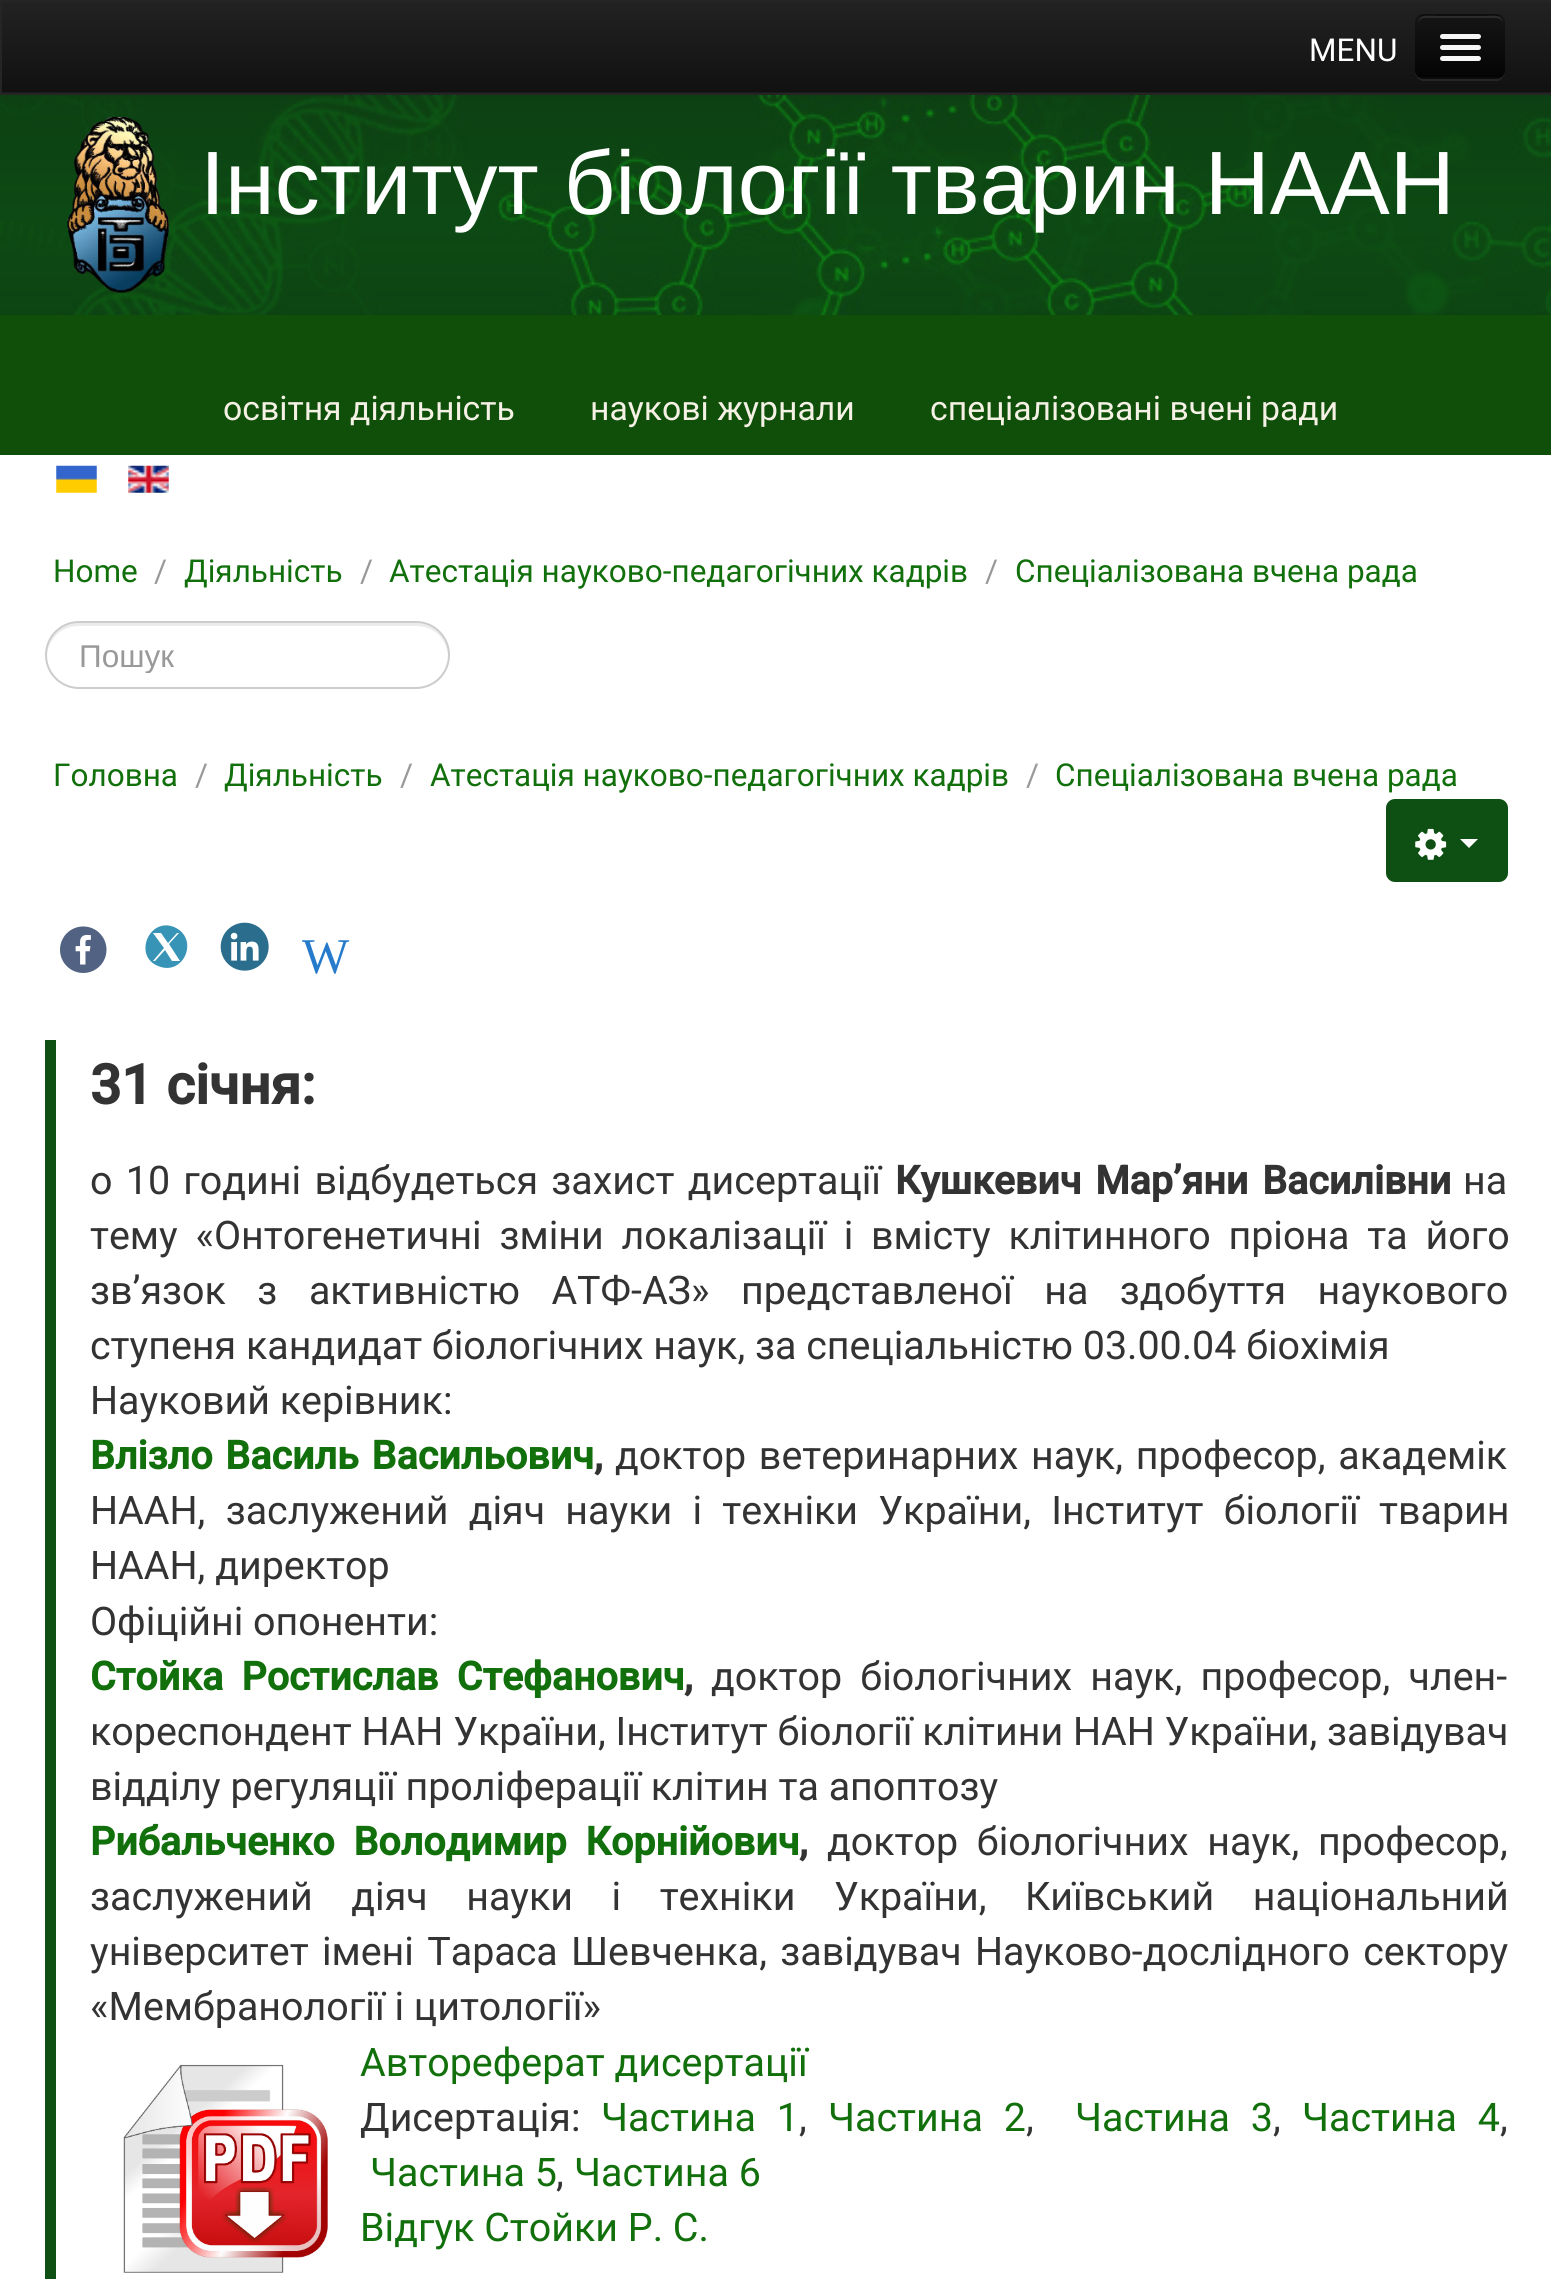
#include <cairo.h>
#include <math.h>
#include <stddef.h>

typedef struct { double x, y; const char *s; } line_t;

static void ink(cairo_t *ctx, unsigned color) {
    cairo_set_source_rgb(ctx, (color >> 16) / 255.0, (color >> 8 & 255) / 255.0, (color & 255) / 255.0);
}

static void write_spaced(cairo_t *ctx, double x, double y, const char *s, double letter, double word) {
    cairo_move_to(ctx, x, y);
    while (*s) {
        char ch[5] = {0};
        int n = 0;
        do ch[n++] = *s++; while ((*s & 0xC0) == 0x80);
        cairo_show_text(ctx, ch);
        cairo_rel_move_to(ctx, letter + word * (*ch == ' '), 0);
    }
}

static void round_path(cairo_t *ctx, double x, double y, double w, double h, double r) {
    cairo_new_sub_path(ctx);
    cairo_arc(ctx, x + w - r, y + h - r, r, 0, M_PI / 2);
    cairo_arc(ctx, x + r, y + h - r, r, M_PI / 2, M_PI);
    cairo_arc(ctx, x + r, y + r, r, M_PI, 1.5 * M_PI);
    cairo_arc(ctx, x + w - r, y + r, r, 1.5 * M_PI, 2 * M_PI);
    cairo_close_path(ctx);
}

static void blur_box(cairo_t *ctx, double x, double y, double w, double h, double r, double blur, double alpha) {
    cairo_push_group_with_content(ctx, CAIRO_CONTENT_ALPHA);
    cairo_set_operator(ctx, CAIRO_OPERATOR_SOURCE);
    for (int i = 15; i >= -15 && fmin(w, h) + blur * i / 3 > 0; i -= 2) {
        double e = blur * i / 6;
        cairo_set_source_rgba(ctx, 0, 0, 0, alpha * erfc((i - 1) / 8.5) / 2);
        round_path(ctx, x - e, y - e, w + 2 * e, h + 2 * e, fmax(0, fmin(r + e + blur * .6, fmin(w, h) / 2 + e)));
        cairo_fill(ctx);
    }
    cairo_pattern_t *soft = cairo_pop_group(ctx);
    cairo_mask(ctx, soft);
    cairo_pattern_destroy(soft);
}

static void paste(cairo_t *ctx, const char *path, double x, double y, double w, double h) {
    cairo_surface_t *image = cairo_image_surface_create_from_png(path);
    cairo_save(ctx);
    cairo_set_source_surface(ctx, image, x, y);
    cairo_rectangle(ctx, x, y, w, h);
    cairo_fill(ctx);
    cairo_restore(ctx);
    cairo_surface_destroy(image);
}

int main(void) {
    cairo_surface_t *surface = cairo_image_surface_create(CAIRO_FORMAT_RGB24, 1551, 2279);
    cairo_t *ctx = cairo_create(surface);
    cairo_font_options_t *options = cairo_font_options_create();
    cairo_font_options_set_hint_metrics(options, CAIRO_HINT_METRICS_OFF);
    cairo_font_options_set_hint_style(options, CAIRO_HINT_STYLE_NONE);
    cairo_set_font_options(ctx, options);
    cairo_set_miter_limit(ctx, 4);
    cairo_pattern_t *gradient;
    ink(ctx, 0xFFFFFF);
    cairo_paint(ctx);
    paste(ctx, "media/1.png", 0, 95, 1551, 220);
    ink(ctx, 0x000000);
    blur_box(ctx, 0, 2, 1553, 95, 0, 4.5, 0.07);
    ink(ctx, 0x1B1B1B);
    cairo_rectangle(ctx, 2, 92, 1549, 1);
    cairo_fill(ctx);
    gradient = cairo_pattern_create_linear(776, 2.2, 776, 92);
    cairo_pattern_add_color_stop_rgba(gradient, 0, 0.133, 0.133, 0.133, 1);
    cairo_pattern_add_color_stop_rgba(gradient, 1, 0.067, 0.067, 0.067, 1);
    cairo_set_source(ctx, gradient);
    cairo_pattern_destroy(gradient);
    cairo_rectangle(ctx, 2, 2, 1549, 90);
    cairo_fill(ctx);
    cairo_rectangle(ctx, 1, 1, 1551, 93);
    ink(ctx, 0x252525);
    cairo_stroke(ctx);
    cairo_new_path(ctx);
    cairo_move_to(ctx, 1415, 23);
    cairo_line_to(ctx, 1415, 74);
    cairo_line_to(ctx, 1417, 77);
    cairo_curve_to(ctx, 1418, 79, 1420, 80, 1422, 81);
    cairo_line_to(ctx, 1498, 81);
    cairo_curve_to(ctx, 1501, 80, 1503, 78, 1504, 76);
    cairo_line_to(ctx, 1505, 72);
    cairo_curve_to(ctx, 1504, 76, 1500, 79, 1496, 79);
    cairo_line_to(ctx, 1424, 79);
    cairo_curve_to(ctx, 1419, 79, 1415, 75, 1415, 70);
    cairo_close_path(ctx);
    cairo_fill(ctx);
    ink(ctx, 0x0E0E0E);
    round_path(ctx, 1415, 14, 90, 65, 9);
    cairo_fill(ctx);
    cairo_save(ctx);
    round_path(ctx, 1415, 14, 90, 65, 9);
    cairo_clip(ctx);
    gradient = cairo_pattern_create_linear(1460, 16, 1460, 77);
    cairo_pattern_add_color_stop_rgba(gradient, 0, 0.082, 0.082, 0.082, 1);
    cairo_pattern_add_color_stop_rgba(gradient, 1, 0.016, 0.016, 0.016, 1);
    cairo_set_source(ctx, gradient);
    cairo_pattern_destroy(gradient);
    cairo_rectangle(ctx, 1415, 16, 90, 61);
    cairo_fill(ctx);
    cairo_restore(ctx);
    ink(ctx, 0x2C2C2C);
    cairo_new_path(ctx);
    cairo_move_to(ctx, 1424, 18);
    cairo_line_to(ctx, 1496, 18);
    cairo_curve_to(ctx, 1500, 18, 1503, 21, 1503, 25);
    cairo_curve_to(ctx, 1503, 13, 1493, 16, 1484, 16);
    cairo_line_to(ctx, 1437, 16);
    cairo_curve_to(ctx, 1428, 16, 1418, 13, 1418, 25);
    cairo_curve_to(ctx, 1418, 21, 1421, 18, 1424, 18);
    cairo_close_path(ctx);
    cairo_fill(ctx);
    cairo_new_path(ctx);
    cairo_move_to(ctx, 1502, 75.5);
    cairo_curve_to(ctx, 1500.5, 77, 1498.5, 77.5, 1496, 77.5);
    cairo_line_to(ctx, 1424, 77.5);
    cairo_curve_to(ctx, 1422, 77.5, 1420, 77, 1418.5, 75.5);
    cairo_set_source_rgba(ctx, 0, 0, 0, 0.25);
    cairo_set_line_width(ctx, 2.2);
    cairo_stroke(ctx);
    cairo_select_font_face(ctx, "Roboto", CAIRO_FONT_SLANT_NORMAL, CAIRO_FONT_WEIGHT_NORMAL);
    cairo_set_font_size(ctx, 31.5);
    ink(ctx, 0xFFFFFF);
    cairo_move_to(ctx, 1309, 61);
    cairo_show_text(ctx, "MENU");
    ink(ctx, 0x0B0B0B);
    cairo_new_path(ctx);
    cairo_move_to(ctx, 1440, 37);
    cairo_curve_to(ctx, 1437, 42, 1448, 41, 1448, 41);
    cairo_line_to(ctx, 1472, 41);
    cairo_curve_to(ctx, 1474, 41, 1480, 42, 1481, 39);
    cairo_line_to(ctx, 1480, 37);
    cairo_line_to(ctx, 1479, 38);
    cairo_line_to(ctx, 1442, 38);
    cairo_close_path(ctx);
    cairo_fill(ctx);
    ink(ctx, 0xF5F5F5);
    round_path(ctx, 1440, 34, 41, 5, 2.5);
    cairo_fill(ctx);
    ink(ctx, 0x080808);
    cairo_new_path(ctx);
    cairo_move_to(ctx, 1440, 48);
    cairo_curve_to(ctx, 1438, 53, 1448, 52, 1448, 52);
    cairo_line_to(ctx, 1472, 52);
    cairo_curve_to(ctx, 1474, 52, 1480, 53, 1481, 50);
    cairo_line_to(ctx, 1480, 48);
    cairo_curve_to(ctx, 1480, 49, 1479, 50, 1478, 50);
    cairo_line_to(ctx, 1442, 50);
    cairo_curve_to(ctx, 1441, 50, 1441, 49, 1440, 48);
    cairo_close_path(ctx);
    cairo_fill(ctx);
    ink(ctx, 0xF5F5F5);
    round_path(ctx, 1440, 45, 41, 5, 2.5);
    cairo_fill(ctx);
    round_path(ctx, 1440, 56, 41, 5, 2.5);
    cairo_fill(ctx);
    paste(ctx, "media/2.png", 67, 117, 102, 176);
    cairo_select_font_face(ctx, "Liberation Sans", CAIRO_FONT_SLANT_NORMAL, CAIRO_FONT_WEIGHT_NORMAL);
    cairo_set_font_size(ctx, 90);
    ink(ctx, 0xFFFFFF);
    cairo_move_to(ctx, 200, 214);
    cairo_show_text(ctx, "Інститут біології тварин НААН");
    ink(ctx, 0x0F4F0A);
    cairo_rectangle(ctx, 0, 315, 1551, 140);
    cairo_fill(ctx);
    cairo_select_font_face(ctx, "Roboto", CAIRO_FONT_SLANT_NORMAL, CAIRO_FONT_WEIGHT_NORMAL);
    cairo_set_font_size(ctx, 33.75);
    ink(ctx, 0xF5F1E5);
    {
        static const line_t items[] = {
            {223, 420, "освітня діяльність"},
            {590, 420, "наукові журнали"},
            {930, 420, "спеціалізовані вчені ради"},
        };
        for (size_t i = 0; i < sizeof items / sizeof *items; i++) {
            cairo_move_to(ctx, items[i].x, items[i].y);
            cairo_show_text(ctx, items[i].s);
        }
    }
    paste(ctx, "media/3.png", 56, 465, 41, 28);
    paste(ctx, "media/4.png", 128, 465, 41, 28);
    cairo_set_font_size(ctx, 31.5);
    ink(ctx, 0x12700C);
    cairo_move_to(ctx, 53, 582);
    cairo_show_text(ctx, "Home");
    ink(ctx, 0x999999);
    cairo_move_to(ctx, 154, 582);
    cairo_show_text(ctx, "/");
    ink(ctx, 0x12700C);
    cairo_move_to(ctx, 184, 582);
    cairo_show_text(ctx, "Діяльність");
    ink(ctx, 0x999999);
    cairo_move_to(ctx, 360, 582);
    cairo_show_text(ctx, "/");
    ink(ctx, 0x12700C);
    cairo_move_to(ctx, 389, 582);
    cairo_show_text(ctx, "Атестація науково-педагогічних кадрів");
    ink(ctx, 0x999999);
    cairo_move_to(ctx, 985, 582);
    cairo_show_text(ctx, "/");
    ink(ctx, 0x12700C);
    cairo_move_to(ctx, 1015, 582);
    cairo_show_text(ctx, "Спеціалізована вчена рада");
    ink(ctx, 0xECECEC);
    cairo_new_path(ctx);
    cairo_move_to(ctx, 79, 626);
    cairo_line_to(ctx, 416, 626);
    cairo_curve_to(ctx, 434, 626, 447, 639, 448, 656);
    cairo_line_to(ctx, 448, 654);
    cairo_curve_to(ctx, 448, 637, 434, 623, 416, 623);
    cairo_line_to(ctx, 78, 623);
    cairo_curve_to(ctx, 61, 623, 47, 637, 47, 654);
    cairo_line_to(ctx, 47, 656);
    cairo_curve_to(ctx, 48, 639, 61, 626, 79, 626);
    cairo_close_path(ctx);
    cairo_fill(ctx);
    round_path(ctx, 46, 622, 403, 66, 33);
    ink(ctx, 0xCCCCCC);
    cairo_set_line_width(ctx, 2);
    cairo_stroke(ctx);
    cairo_save(ctx);
    cairo_rectangle(ctx, 79, 637, 328, 36);
    cairo_clip(ctx);
    cairo_select_font_face(ctx, "Liberation Sans", CAIRO_FONT_SLANT_NORMAL, CAIRO_FONT_WEIGHT_NORMAL);
    ink(ctx, 0x999999);
    cairo_move_to(ctx, 79, 667);
    cairo_show_text(ctx, "Пошук");
    cairo_restore(ctx);
    ink(ctx, 0x12700C);
    cairo_move_to(ctx, 53, 786);
    cairo_show_text(ctx, "Головна");
    ink(ctx, 0x999999);
    cairo_move_to(ctx, 195, 786);
    cairo_show_text(ctx, "/");
    ink(ctx, 0x12700C);
    cairo_move_to(ctx, 224, 786);
    cairo_show_text(ctx, "Діяльність");
    ink(ctx, 0x999999);
    cairo_move_to(ctx, 400, 786);
    cairo_show_text(ctx, "/");
    ink(ctx, 0x12700C);
    cairo_move_to(ctx, 430, 786);
    cairo_show_text(ctx, "Атестація науково-педагогічних кадрів");
    ink(ctx, 0x999999);
    cairo_move_to(ctx, 1026, 786);
    cairo_show_text(ctx, "/");
    ink(ctx, 0x12700C);
    cairo_move_to(ctx, 1055, 786);
    cairo_show_text(ctx, "Спеціалізована вчена рада");
    ink(ctx, 0x0E5013);
    round_path(ctx, 1386, 799, 122, 83, 9);
    cairo_fill(ctx);
    paste(ctx, "media/5.png", 1415, 828, 32, 32);
    ink(ctx, 0xFFFFFF);
    cairo_new_path(ctx);
    cairo_move_to(ctx, 1460, 839);
    cairo_line_to(ctx, 1478, 839);
    cairo_line_to(ctx, 1469, 848);
    cairo_close_path(ctx);
    cairo_fill(ctx);
    paste(ctx, "media/6.png", 60, 926, 47, 47);
    ink(ctx, 0x3894B6);
    cairo_new_path(ctx);
    cairo_move_to(ctx, 174, 927);
    cairo_curve_to(ctx, 149, 917, 133, 956, 158, 966);
    cairo_curve_to(ctx, 184, 977, 200, 938, 174, 927);
    cairo_close_path(ctx);
    cairo_move_to(ctx, 153, 933);
    cairo_line_to(ctx, 161, 933);
    cairo_line_to(ctx, 168, 943);
    cairo_line_to(ctx, 177, 933);
    cairo_line_to(ctx, 179, 933);
    cairo_line_to(ctx, 169, 944);
    cairo_line_to(ctx, 180, 961);
    cairo_line_to(ctx, 172, 961);
    cairo_line_to(ctx, 165, 950);
    cairo_line_to(ctx, 155, 961);
    cairo_line_to(ctx, 153, 961);
    cairo_line_to(ctx, 164, 948);
    cairo_close_path(ctx);
    cairo_fill(ctx);
    paste(ctx, "media/7.png", 220, 922, 49, 49);
    cairo_select_font_face(ctx, "Liberation Serif", CAIRO_FONT_SLANT_NORMAL, CAIRO_FONT_WEIGHT_NORMAL);
    cairo_set_font_size(ctx, 50);
    ink(ctx, 0x257ACC);
    cairo_move_to(ctx, 302, 973);
    cairo_show_text(ctx, "W");
    ink(ctx, 0x0E5013);
    cairo_rectangle(ctx, 45, 1040, 11, 1239);
    cairo_fill(ctx);
    cairo_select_font_face(ctx, "Roboto", CAIRO_FONT_SLANT_NORMAL, CAIRO_FONT_WEIGHT_BOLD);
    cairo_set_font_size(ctx, 55);
    ink(ctx, 0x333333);
    cairo_move_to(ctx, 90, 1104);
    cairo_show_text(ctx, "31 січня:");
    cairo_select_font_face(ctx, "Roboto", CAIRO_FONT_SLANT_NORMAL, CAIRO_FONT_WEIGHT_NORMAL);
    cairo_set_font_size(ctx, 39.4);
    write_spaced(ctx, 90, 1194, "о 10 годині відбудеться захист дисертації", 0, 3.5);
    cairo_select_font_face(ctx, "Roboto", CAIRO_FONT_SLANT_NORMAL, CAIRO_FONT_WEIGHT_BOLD);
    write_spaced(ctx, 895, 1194, "Кушкевич Мар’яни Василівни", 0, 4);
    cairo_select_font_face(ctx, "Roboto", CAIRO_FONT_SLANT_NORMAL, CAIRO_FONT_WEIGHT_NORMAL);
    cairo_move_to(ctx, 1463, 1194);
    cairo_show_text(ctx, "на");
    write_spaced(ctx, 90, 1249, "тему «Онтогенетичні зміни локалізації і вмісту клітинного пріона та його", 0, 8);
    write_spaced(ctx, 90, 1304, "зв’язок з активністю АТФ-АЗ» представленої на здобуття наукового", 0, 21.75);
    cairo_move_to(ctx, 90, 1359);
    cairo_show_text(ctx, "ступеня кандидат біологічних наук, за спеціальністю 03.00.04 біохімія");
    cairo_move_to(ctx, 90, 1414);
    cairo_show_text(ctx, "Науковий керівник:");
    cairo_select_font_face(ctx, "Roboto", CAIRO_FONT_SLANT_NORMAL, CAIRO_FONT_WEIGHT_BOLD);
    ink(ctx, 0x12700C);
    write_spaced(ctx, 90, 1469, "Влізло Василь Васильович", 0, 3);
    ink(ctx, 0x333333);
    cairo_move_to(ctx, 594, 1469);
    cairo_show_text(ctx, ",");
    cairo_select_font_face(ctx, "Roboto", CAIRO_FONT_SLANT_NORMAL, CAIRO_FONT_WEIGHT_NORMAL);
    write_spaced(ctx, 615, 1469, "доктор ветеринарних наук, професор, академік", 0, 3);
    write_spaced(ctx, 90, 1524, "НААН, заслужений діяч науки і техніки України, Інститут біології тварин", 0, 10.5);
    cairo_move_to(ctx, 90, 1579);
    cairo_show_text(ctx, "НААН, директор");
    cairo_move_to(ctx, 90, 1635);
    cairo_show_text(ctx, "Офіційні опоненти:");
    cairo_select_font_face(ctx, "Roboto", CAIRO_FONT_SLANT_NORMAL, CAIRO_FONT_WEIGHT_BOLD);
    ink(ctx, 0x12700C);
    write_spaced(ctx, 90, 1690, "Стойка Ростислав Стефанович", 0, 8.5);
    ink(ctx, 0x333333);
    cairo_move_to(ctx, 684, 1690);
    cairo_show_text(ctx, ",");
    cairo_select_font_face(ctx, "Roboto", CAIRO_FONT_SLANT_NORMAL, CAIRO_FONT_WEIGHT_NORMAL);
    write_spaced(ctx, 711, 1690, "доктор біологічних наук, професор, член-", 0, 8.5);
    cairo_move_to(ctx, 90, 1745);
    cairo_show_text(ctx, "кореспондент НАН України, Інститут біології клітини НАН України, завідувач");
    cairo_move_to(ctx, 90, 1800);
    cairo_show_text(ctx, "відділу регуляції проліферації клітин та апоптозу");
    cairo_select_font_face(ctx, "Roboto", CAIRO_FONT_SLANT_NORMAL, CAIRO_FONT_WEIGHT_BOLD);
    ink(ctx, 0x12700C);
    write_spaced(ctx, 90, 1855, "Рибальченко Володимир Корнійович", 0, 9);
    ink(ctx, 0x333333);
    cairo_move_to(ctx, 799, 1855);
    cairo_show_text(ctx, ",");
    cairo_select_font_face(ctx, "Roboto", CAIRO_FONT_SLANT_NORMAL, CAIRO_FONT_WEIGHT_NORMAL);
    write_spaced(ctx, 827, 1855, "доктор біологічних наук, професор,", 0, 9);
    write_spaced(ctx, 90, 1910, "заслужений діяч науки і техніки України, Київський національний", 0, 28.75);
    write_spaced(ctx, 90, 1965, "університет імені Тараса Шевченка, завідувач Науково-дослідного сектору", 0, 3.5);
    cairo_move_to(ctx, 90, 2020);
    cairo_show_text(ctx, "«Мембранології і цитології»");
    paste(ctx, "media/8.png", 123, 2064, 205, 209);
    ink(ctx, 0x12700C);
    cairo_move_to(ctx, 360, 2076);
    cairo_show_text(ctx, "Автореферат дисертації");
    ink(ctx, 0x333333);
    cairo_move_to(ctx, 360, 2131);
    cairo_show_text(ctx, "Дисертація:");
    ink(ctx, 0x12700C);
    write_spaced(ctx, 601, 2131, "Частина 1", 0, 11);
    ink(ctx, 0x333333);
    cairo_move_to(ctx, 799, 2131);
    cairo_show_text(ctx, ",");
    ink(ctx, 0x12700C);
    write_spaced(ctx, 828, 2131, "Частина 2", 0, 11);
    ink(ctx, 0x333333);
    cairo_move_to(ctx, 1026, 2131);
    cairo_show_text(ctx, ",");
    ink(ctx, 0x12700C);
    write_spaced(ctx, 1075, 2131, "Частина 3", 0, 11);
    ink(ctx, 0x333333);
    cairo_move_to(ctx, 1273, 2131);
    cairo_show_text(ctx, ",");
    ink(ctx, 0x12700C);
    write_spaced(ctx, 1302, 2131, "Частина 4", 0, 11);
    ink(ctx, 0x333333);
    cairo_move_to(ctx, 1500, 2131);
    cairo_show_text(ctx, ",");
    ink(ctx, 0x12700C);
    cairo_move_to(ctx, 370, 2186);
    cairo_show_text(ctx, "Частина 5");
    ink(ctx, 0x333333);
    cairo_move_to(ctx, 556, 2186);
    cairo_show_text(ctx, ",");
    ink(ctx, 0x12700C);
    cairo_move_to(ctx, 574, 2186);
    cairo_show_text(ctx, "Частина 6");
    cairo_move_to(ctx, 360, 2241);
    cairo_show_text(ctx, "Відгук Стойки Р. С.");
    cairo_surface_write_to_png(surface, "image.png");
    cairo_font_options_destroy(options);
    cairo_destroy(ctx);
    cairo_surface_destroy(surface);
    return 0;
}
